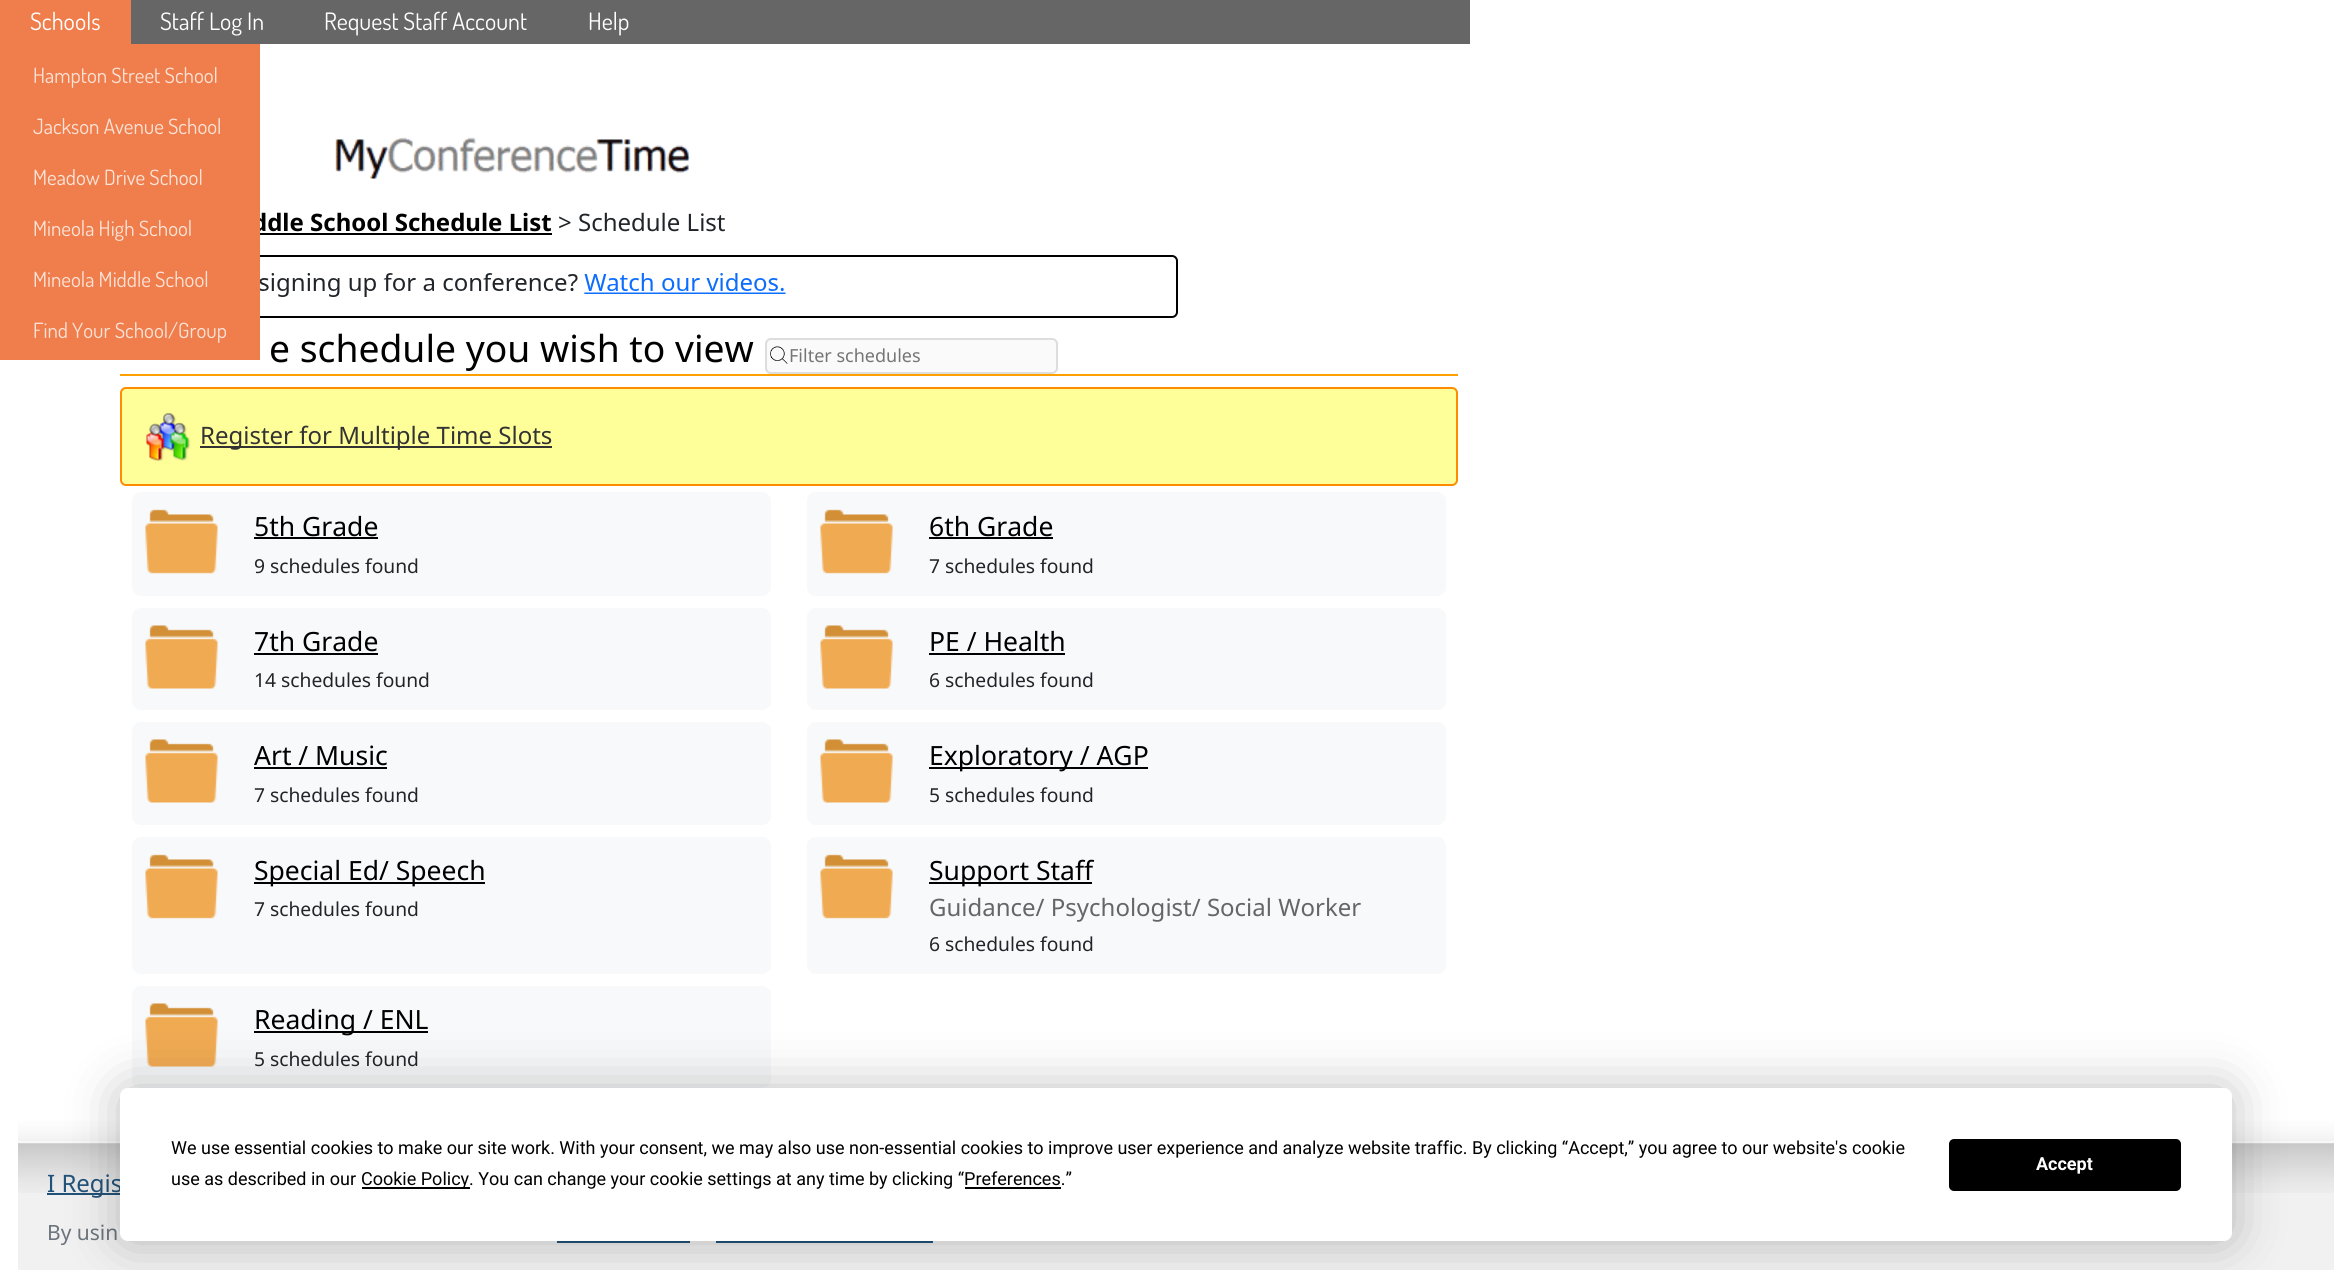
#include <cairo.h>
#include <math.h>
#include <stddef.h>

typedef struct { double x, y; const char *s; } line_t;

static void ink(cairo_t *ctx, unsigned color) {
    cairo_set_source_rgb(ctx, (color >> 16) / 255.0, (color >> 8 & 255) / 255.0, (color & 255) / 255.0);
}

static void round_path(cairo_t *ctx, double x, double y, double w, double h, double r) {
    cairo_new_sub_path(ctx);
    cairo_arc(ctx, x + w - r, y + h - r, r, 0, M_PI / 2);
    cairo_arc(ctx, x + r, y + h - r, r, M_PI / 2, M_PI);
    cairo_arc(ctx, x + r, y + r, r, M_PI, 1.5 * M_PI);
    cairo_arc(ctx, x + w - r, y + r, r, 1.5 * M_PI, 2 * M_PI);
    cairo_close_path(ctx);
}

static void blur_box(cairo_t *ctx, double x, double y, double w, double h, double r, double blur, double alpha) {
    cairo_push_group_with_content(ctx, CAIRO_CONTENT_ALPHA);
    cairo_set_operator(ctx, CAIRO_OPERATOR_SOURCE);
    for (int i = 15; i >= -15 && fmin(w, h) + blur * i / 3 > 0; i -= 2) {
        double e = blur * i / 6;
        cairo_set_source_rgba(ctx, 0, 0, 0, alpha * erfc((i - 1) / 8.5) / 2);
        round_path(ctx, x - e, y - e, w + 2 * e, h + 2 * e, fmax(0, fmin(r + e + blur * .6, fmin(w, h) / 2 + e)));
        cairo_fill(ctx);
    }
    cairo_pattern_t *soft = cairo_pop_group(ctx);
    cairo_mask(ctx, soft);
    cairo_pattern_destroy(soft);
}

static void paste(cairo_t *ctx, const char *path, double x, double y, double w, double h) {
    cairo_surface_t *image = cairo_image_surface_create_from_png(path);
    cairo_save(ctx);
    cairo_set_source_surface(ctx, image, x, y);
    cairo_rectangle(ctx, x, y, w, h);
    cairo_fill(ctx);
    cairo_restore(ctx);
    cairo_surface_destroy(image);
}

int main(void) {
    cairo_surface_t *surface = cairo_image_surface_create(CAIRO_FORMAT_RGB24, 2352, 1270);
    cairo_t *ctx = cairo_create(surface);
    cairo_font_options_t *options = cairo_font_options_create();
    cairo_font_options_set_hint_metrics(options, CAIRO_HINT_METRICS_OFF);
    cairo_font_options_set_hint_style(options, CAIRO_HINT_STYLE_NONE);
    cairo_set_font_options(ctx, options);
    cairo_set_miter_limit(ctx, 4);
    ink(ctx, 0xFFFFFF);
    cairo_paint(ctx);
    ink(ctx, 0x666666);
    cairo_rectangle(ctx, 131, 0, 1339, 44);
    cairo_fill(ctx);
    ink(ctx, 0xEF7E4C);
    cairo_rectangle(ctx, 0, 0, 131, 44);
    cairo_fill(ctx);
    cairo_select_font_face(ctx, "Dosis", CAIRO_FONT_SLANT_NORMAL, CAIRO_FONT_WEIGHT_NORMAL);
    cairo_set_font_size(ctx, 24);
    ink(ctx, 0xFFFFFF);
    cairo_move_to(ctx, 30, 30);
    cairo_show_text(ctx, "Schools");
    cairo_select_font_face(ctx, "Noto Sans", CAIRO_FONT_SLANT_NORMAL, CAIRO_FONT_WEIGHT_BOLD);
    ink(ctx, 0x000000);
    cairo_move_to(ctx, 252, 231);
    cairo_show_text(ctx, "ddle School Schedule List");
    round_path(ctx, 129, 256, 1048, 61, 5);
    cairo_stroke(ctx);
    ink(ctx, 0xEF7E4C);
    cairo_rectangle(ctx, 0, 44, 260, 316);
    cairo_fill(ctx);
    cairo_select_font_face(ctx, "Dosis", CAIRO_FONT_SLANT_NORMAL, CAIRO_FONT_WEIGHT_NORMAL);
    cairo_set_font_size(ctx, 21);
    ink(ctx, 0xFCE3D8);
    {
        static const line_t items[] = {
            {33, 83, "Hampton Street School"},
            {33, 134, "Jackson Avenue School"},
            {33, 185, "Meadow Drive School"},
            {33, 236, "Mineola High School"},
            {33, 287, "Mineola Middle School"},
            {33, 338, "Find Your School/Group"},
        };
        for (size_t i = 0; i < sizeof items / sizeof *items; i++) {
            cairo_move_to(ctx, items[i].x, items[i].y);
            cairo_show_text(ctx, items[i].s);
        }
    }
    cairo_set_font_size(ctx, 24);
    ink(ctx, 0xFFFFFF);
    {
        static const line_t items[] = {
            {160, 30, "Staff Log In"},
            {324, 30, "Request Staff Account"},
            {588, 30, "Help"},
        };
        for (size_t i = 0; i < sizeof items / sizeof *items; i++) {
            cairo_move_to(ctx, items[i].x, items[i].y);
            cairo_show_text(ctx, items[i].s);
        }
    }
    paste(ctx, "media/1.png", 335, 137, 356, 42);
    ink(ctx, 0x000000);
    cairo_rectangle(ctx, 260, 233, 292, 2);
    cairo_fill(ctx);
    cairo_select_font_face(ctx, "Noto Sans", CAIRO_FONT_SLANT_NORMAL, CAIRO_FONT_WEIGHT_NORMAL);
    ink(ctx, 0x212529);
    cairo_move_to(ctx, 558, 231);
    cairo_show_text(ctx, "> Schedule List");
    paste(ctx, "media/2.png", 260, 273, 526, 24);
    ink(ctx, 0xFFA000);
    cairo_rectangle(ctx, 120, 374, 1338, 2);
    cairo_fill(ctx);
    cairo_set_font_size(ctx, 37.25);
    ink(ctx, 0x000000);
    cairo_move_to(ctx, 269, 362);
    cairo_show_text(ctx, "e schedule you wish to view");
    ink(ctx, 0xFAFAFA);
    round_path(ctx, 765, 338, 293, 36, 6);
    cairo_fill(ctx);
    paste(ctx, "media/3.png", 770, 346, 18, 18);
    round_path(ctx, 766, 339, 291, 34, 5);
    ink(ctx, 0xDDDDDD);
    cairo_stroke(ctx);
    cairo_set_font_size(ctx, 18);
    ink(ctx, 0x757575);
    cairo_move_to(ctx, 789, 362);
    cairo_show_text(ctx, "Filter schedules");
    ink(ctx, 0xFFFF99);
    round_path(ctx, 121, 388, 1336, 97, 5);
    cairo_fill_preserve(ctx);
    ink(ctx, 0xFF8C00);
    cairo_stroke(ctx);
    paste(ctx, "media/4.png", 146, 413, 45, 48);
    ink(ctx, 0x333333);
    cairo_rectangle(ctx, 200, 446, 352, 2);
    cairo_fill(ctx);
    cairo_set_font_size(ctx, 24);
    cairo_move_to(ctx, 200, 444);
    cairo_show_text(ctx, "Register for Multiple Time Slots");
    ink(ctx, 0xF8F9FA);
    round_path(ctx, 132, 492, 639, 104, 9);
    cairo_fill(ctx);
    paste(ctx, "media/5.png", 145, 509, 73, 65);
    cairo_set_font_size(ctx, 26.5);
    ink(ctx, 0x000000);
    cairo_move_to(ctx, 254, 536);
    cairo_show_text(ctx, "5th Grade");
    cairo_rectangle(ctx, 254, 537, 124, 2);
    cairo_fill(ctx);
    cairo_set_font_size(ctx, 19.25);
    ink(ctx, 0x212529);
    cairo_move_to(ctx, 254, 573);
    cairo_show_text(ctx, "9 schedules found");
    ink(ctx, 0xF8F9FA);
    round_path(ctx, 807, 492, 639, 104, 9);
    cairo_fill(ctx);
    paste(ctx, "media/5.png", 820, 509, 73, 65);
    cairo_set_font_size(ctx, 26.5);
    ink(ctx, 0x000000);
    cairo_move_to(ctx, 929, 536);
    cairo_show_text(ctx, "6th Grade");
    cairo_rectangle(ctx, 929, 537, 124, 2);
    cairo_fill(ctx);
    cairo_set_font_size(ctx, 19.25);
    ink(ctx, 0x212529);
    cairo_move_to(ctx, 929, 573);
    cairo_show_text(ctx, "7 schedules found");
    ink(ctx, 0xF8F9FA);
    round_path(ctx, 132, 608, 639, 102, 9);
    cairo_fill(ctx);
    paste(ctx, "media/6.png", 145, 625, 73, 64);
    cairo_set_font_size(ctx, 26.5);
    ink(ctx, 0x000000);
    cairo_move_to(ctx, 254, 651);
    cairo_show_text(ctx, "7th Grade");
    cairo_rectangle(ctx, 254, 653, 124, 2);
    cairo_fill(ctx);
    cairo_set_font_size(ctx, 19.25);
    ink(ctx, 0x212529);
    cairo_move_to(ctx, 254, 687);
    cairo_show_text(ctx, "14 schedules found");
    ink(ctx, 0xF8F9FA);
    round_path(ctx, 807, 608, 639, 102, 9);
    cairo_fill(ctx);
    paste(ctx, "media/6.png", 820, 625, 73, 64);
    cairo_set_font_size(ctx, 26.5);
    ink(ctx, 0x000000);
    cairo_move_to(ctx, 929, 651);
    cairo_show_text(ctx, "PE / Health");
    cairo_rectangle(ctx, 929, 653, 136, 2);
    cairo_fill(ctx);
    cairo_set_font_size(ctx, 19.25);
    ink(ctx, 0x212529);
    cairo_move_to(ctx, 929, 687);
    cairo_show_text(ctx, "6 schedules found");
    ink(ctx, 0xF8F9FA);
    round_path(ctx, 132, 722, 639, 103, 9);
    cairo_fill(ctx);
    paste(ctx, "media/6.png", 145, 739, 73, 64);
    cairo_set_font_size(ctx, 26.5);
    ink(ctx, 0x000000);
    cairo_move_to(ctx, 254, 765);
    cairo_show_text(ctx, "Art / Music");
    cairo_rectangle(ctx, 254, 767, 133, 2);
    cairo_fill(ctx);
    cairo_set_font_size(ctx, 19.25);
    ink(ctx, 0x212529);
    cairo_move_to(ctx, 254, 802);
    cairo_show_text(ctx, "7 schedules found");
    ink(ctx, 0xF8F9FA);
    round_path(ctx, 807, 722, 639, 103, 9);
    cairo_fill(ctx);
    paste(ctx, "media/6.png", 820, 739, 73, 64);
    ink(ctx, 0x000000);
    cairo_rectangle(ctx, 929, 767, 219, 2);
    cairo_fill(ctx);
    cairo_set_font_size(ctx, 26.5);
    cairo_move_to(ctx, 929, 765);
    cairo_show_text(ctx, "Exploratory / AGP");
    cairo_set_font_size(ctx, 19.25);
    ink(ctx, 0x212529);
    cairo_move_to(ctx, 929, 802);
    cairo_show_text(ctx, "5 schedules found");
    ink(ctx, 0xF8F9FA);
    round_path(ctx, 132, 837, 639, 137, 9);
    cairo_fill(ctx);
    paste(ctx, "media/5.png", 145, 854, 73, 65);
    ink(ctx, 0x000000);
    cairo_rectangle(ctx, 254, 882, 231, 2);
    cairo_fill(ctx);
    cairo_set_font_size(ctx, 26.5);
    cairo_move_to(ctx, 254, 880);
    cairo_show_text(ctx, "Special Ed/ Speech");
    cairo_set_font_size(ctx, 19.25);
    ink(ctx, 0x212529);
    cairo_move_to(ctx, 254, 916);
    cairo_show_text(ctx, "7 schedules found");
    ink(ctx, 0xF8F9FA);
    round_path(ctx, 807, 837, 639, 137, 9);
    cairo_fill(ctx);
    paste(ctx, "media/5.png", 820, 854, 73, 65);
    ink(ctx, 0x000000);
    cairo_rectangle(ctx, 929, 882, 163, 2);
    cairo_fill(ctx);
    cairo_set_font_size(ctx, 26.5);
    cairo_move_to(ctx, 929, 880);
    cairo_show_text(ctx, "Support Staff");
    cairo_set_font_size(ctx, 24);
    ink(ctx, 0x666666);
    cairo_move_to(ctx, 929, 916);
    cairo_show_text(ctx, "Guidance/ Psychologist/ Social Worker");
    cairo_set_font_size(ctx, 19.25);
    ink(ctx, 0x212529);
    cairo_move_to(ctx, 929, 951);
    cairo_show_text(ctx, "6 schedules found");
    ink(ctx, 0xF8F9FA);
    round_path(ctx, 132, 986, 639, 102, 9);
    cairo_fill(ctx);
    paste(ctx, "media/6.png", 145, 1003, 73, 64);
    ink(ctx, 0x000000);
    cairo_rectangle(ctx, 254, 1031, 174, 2);
    cairo_fill(ctx);
    cairo_set_font_size(ctx, 26.5);
    cairo_move_to(ctx, 254, 1029);
    cairo_show_text(ctx, "Reading / ENL");
    cairo_set_font_size(ctx, 19.25);
    ink(ctx, 0x212529);
    cairo_move_to(ctx, 254, 1066);
    cairo_show_text(ctx, "5 schedules found");
    ink(ctx, 0xF1F1F2);
    cairo_rectangle(ctx, 18, 1193, 2316, 77);
    cairo_fill(ctx);
    paste(ctx, "media/7.png", 18, 1119, 2316, 74);
    ink(ctx, 0x225279);
    cairo_rectangle(ctx, 47, 1193, 73, 2);
    cairo_fill(ctx);
    cairo_set_font_size(ctx, 24);
    cairo_move_to(ctx, 47, 1192);
    cairo_show_text(ctx, "I Regis");
    cairo_set_font_size(ctx, 21);
    ink(ctx, 0x6C757D);
    cairo_move_to(ctx, 47, 1240);
    cairo_show_text(ctx, "By usin");
    ink(ctx, 0x225279);
    cairo_rectangle(ctx, 557, 1241, 133, 2);
    cairo_fill(ctx);
    cairo_rectangle(ctx, 716, 1241, 217, 2);
    cairo_fill(ctx);
    ink(ctx, 0x000000);
    blur_box(ctx, 120, 1088, 2112, 153, 8, 26, 0.25);
    ink(ctx, 0xFFFFFF);
    round_path(ctx, 120, 1088, 2112, 153, 8);
    cairo_fill(ctx);
    cairo_select_font_face(ctx, "Roboto", CAIRO_FONT_SLANT_NORMAL, CAIRO_FONT_WEIGHT_NORMAL);
    cairo_set_font_size(ctx, 18);
    ink(ctx, 0x000000);
    cairo_move_to(ctx, 171, 1154);
    cairo_show_text(ctx, "We use essential cookies to make our site work. With your consent, we may also use non-essential cookies to improve user experience and analyze website traffic. By clicking “Accept,” you agree to our website's cookie");
    cairo_move_to(ctx, 171, 1185);
    cairo_show_text(ctx, "use as described in our");
    cairo_rectangle(ctx, 362, 1187, 108, 2);
    cairo_fill(ctx);
    cairo_move_to(ctx, 361, 1185);
    cairo_show_text(ctx, "Cookie Policy. You can change your cookie settings at any time by clicking “Preferences.”");
    cairo_rectangle(ctx, 965, 1187, 96, 2);
    cairo_fill(ctx);
    round_path(ctx, 1950, 1140, 230, 50, 4);
    cairo_fill_preserve(ctx);
    cairo_stroke(ctx);
    cairo_select_font_face(ctx, "Roboto", CAIRO_FONT_SLANT_NORMAL, CAIRO_FONT_WEIGHT_BOLD);
    ink(ctx, 0xFFFFFF);
    cairo_move_to(ctx, 2036, 1170);
    cairo_show_text(ctx, "Accept");
    cairo_surface_write_to_png(surface, "image.png");
    cairo_font_options_destroy(options);
    cairo_destroy(ctx);
    cairo_surface_destroy(surface);
    return 0;
}
